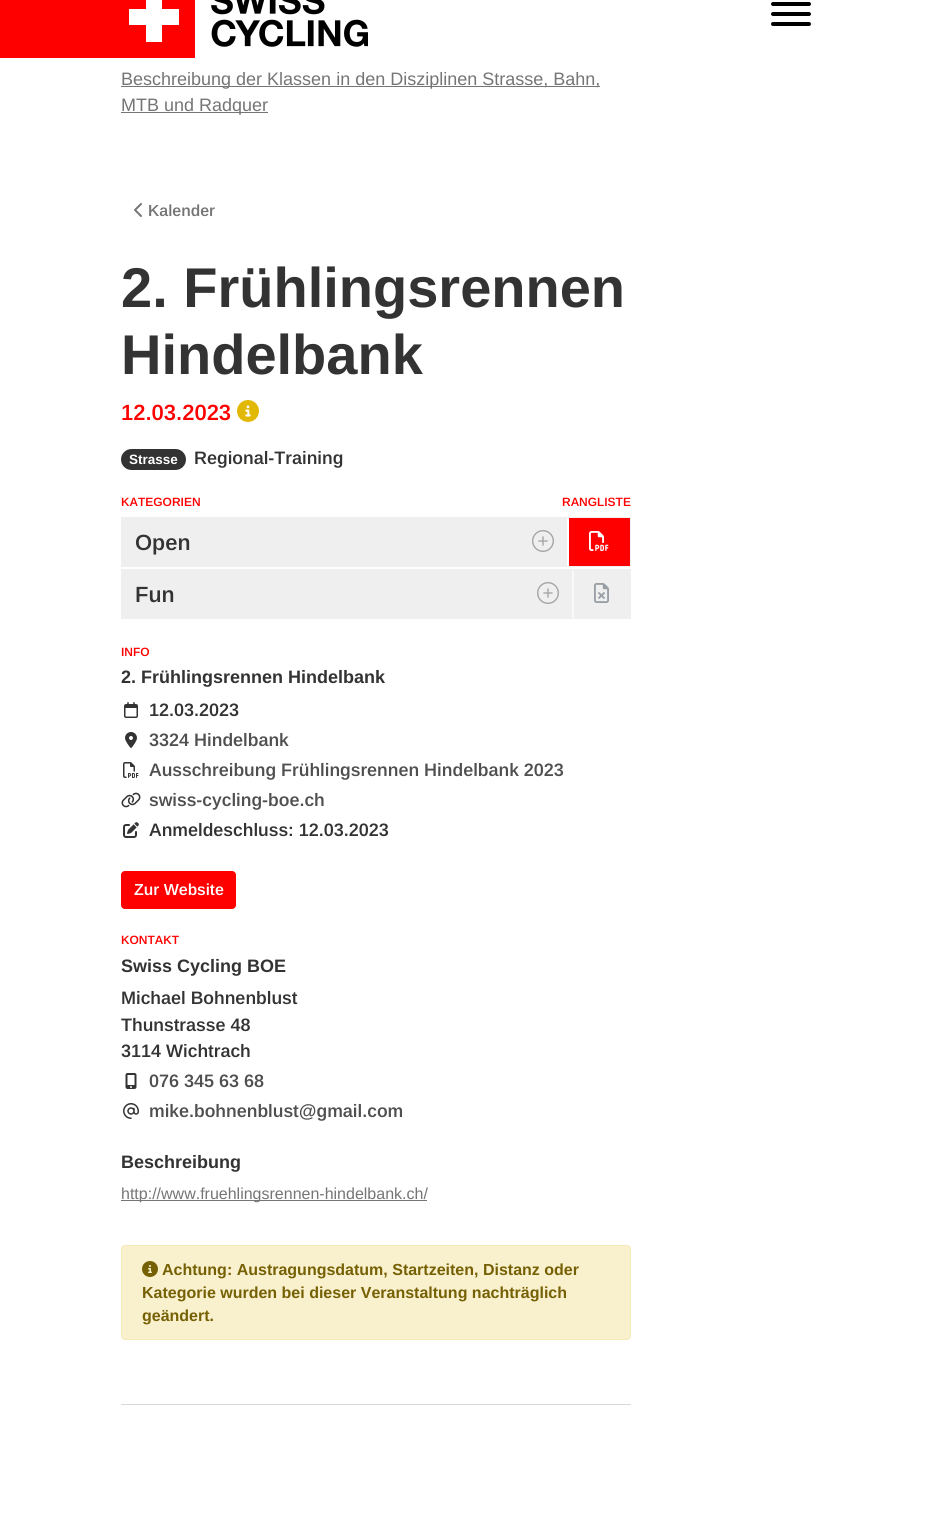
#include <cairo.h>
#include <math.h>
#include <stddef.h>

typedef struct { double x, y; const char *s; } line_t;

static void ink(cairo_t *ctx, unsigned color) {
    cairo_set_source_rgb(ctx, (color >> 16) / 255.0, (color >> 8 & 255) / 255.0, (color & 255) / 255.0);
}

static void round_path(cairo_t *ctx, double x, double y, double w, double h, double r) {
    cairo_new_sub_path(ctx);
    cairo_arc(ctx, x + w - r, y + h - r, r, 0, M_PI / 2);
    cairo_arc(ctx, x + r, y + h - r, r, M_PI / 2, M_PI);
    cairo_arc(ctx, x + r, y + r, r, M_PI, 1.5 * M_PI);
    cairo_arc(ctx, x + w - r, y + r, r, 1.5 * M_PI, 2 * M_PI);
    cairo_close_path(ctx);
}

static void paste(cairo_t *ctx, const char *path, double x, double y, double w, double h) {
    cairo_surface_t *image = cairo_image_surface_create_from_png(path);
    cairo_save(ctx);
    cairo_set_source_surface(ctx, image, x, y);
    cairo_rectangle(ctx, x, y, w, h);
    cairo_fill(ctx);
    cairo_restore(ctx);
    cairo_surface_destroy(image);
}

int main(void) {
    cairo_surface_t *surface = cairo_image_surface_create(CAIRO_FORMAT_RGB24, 931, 1530);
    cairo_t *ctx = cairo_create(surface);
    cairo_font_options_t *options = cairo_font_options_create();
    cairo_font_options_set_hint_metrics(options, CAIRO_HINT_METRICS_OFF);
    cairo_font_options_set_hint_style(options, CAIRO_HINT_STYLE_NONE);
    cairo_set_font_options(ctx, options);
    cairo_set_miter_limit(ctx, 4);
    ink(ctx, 0xFFFFFF);
    cairo_paint(ctx);
    ink(ctx, 0xFF0000);
    cairo_rectangle(ctx, 0, 0, 195, 58);
    cairo_fill(ctx);
    ink(ctx, 0xFFFFFF);
    cairo_new_path(ctx);
    cairo_move_to(ctx, 162, 9);
    cairo_line_to(ctx, 162, -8);
    cairo_line_to(ctx, 146, -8);
    cairo_line_to(ctx, 146, 9);
    cairo_line_to(ctx, 129, 9);
    cairo_line_to(ctx, 129, 25);
    cairo_line_to(ctx, 146, 25);
    cairo_line_to(ctx, 146, 42);
    cairo_line_to(ctx, 162, 42);
    cairo_line_to(ctx, 162, 25);
    cairo_line_to(ctx, 179, 25);
    cairo_line_to(ctx, 179, 9);
    cairo_close_path(ctx);
    cairo_fill(ctx);
    paste(ctx, "media/1.png", 211, 0, 157, 47);
    ink(ctx, 0x000000);
    round_path(ctx, 771, 12, 40, 4, 2);
    cairo_fill(ctx);
    round_path(ctx, 771, 2, 40, 4, 2);
    cairo_fill(ctx);
    round_path(ctx, 771, 22, 40, 4, 2);
    cairo_fill(ctx);
    ink(ctx, 0x757575);
    cairo_rectangle(ctx, 121, 86, 479, 1);
    cairo_fill(ctx);
    cairo_select_font_face(ctx, "Arimo", CAIRO_FONT_SLANT_NORMAL, CAIRO_FONT_WEIGHT_NORMAL);
    cairo_set_font_size(ctx, 18);
    cairo_move_to(ctx, 121, 85);
    cairo_show_text(ctx, "Beschreibung der Klassen in den Disziplinen Strasse, Bahn,");
    cairo_rectangle(ctx, 121, 112, 147, 1);
    cairo_fill(ctx);
    cairo_move_to(ctx, 121, 111);
    cairo_show_text(ctx, "MTB und Radquer");
    paste(ctx, "media/2.png", 134, 203, 8, 14);
    cairo_select_font_face(ctx, "Arimo SemiBold", CAIRO_FONT_SLANT_NORMAL, CAIRO_FONT_WEIGHT_NORMAL);
    cairo_set_font_size(ctx, 16);
    cairo_move_to(ctx, 148, 216);
    cairo_show_text(ctx, "Kalender");
    cairo_select_font_face(ctx, "Arimo", CAIRO_FONT_SLANT_NORMAL, CAIRO_FONT_WEIGHT_BOLD);
    cairo_set_font_size(ctx, 56);
    ink(ctx, 0x333333);
    cairo_move_to(ctx, 121, 307);
    cairo_show_text(ctx, "2. Frühlingsrennen");
    cairo_move_to(ctx, 121, 374);
    cairo_show_text(ctx, "Hindelbank");
    cairo_select_font_face(ctx, "Arimo SemiBold", CAIRO_FONT_SLANT_NORMAL, CAIRO_FONT_WEIGHT_NORMAL);
    cairo_set_font_size(ctx, 22);
    ink(ctx, 0xFF0000);
    cairo_move_to(ctx, 121, 420);
    cairo_show_text(ctx, "12.03.2023");
    paste(ctx, "media/3.png", 237, 400, 22, 22);
    ink(ctx, 0x333333);
    round_path(ctx, 121, 449, 65, 21, 10.5);
    cairo_fill(ctx);
    cairo_select_font_face(ctx, "Arimo", CAIRO_FONT_SLANT_NORMAL, CAIRO_FONT_WEIGHT_BOLD);
    cairo_set_font_size(ctx, 13.5);
    ink(ctx, 0xFFFFFF);
    cairo_move_to(ctx, 129, 464);
    cairo_show_text(ctx, "Strasse");
    cairo_select_font_face(ctx, "Arimo SemiBold", CAIRO_FONT_SLANT_NORMAL, CAIRO_FONT_WEIGHT_NORMAL);
    cairo_set_font_size(ctx, 18);
    ink(ctx, 0x333333);
    cairo_move_to(ctx, 194, 464);
    cairo_show_text(ctx, "Regional-Training");
    cairo_set_font_size(ctx, 12);
    ink(ctx, 0xFF0000);
    cairo_move_to(ctx, 121, 506);
    cairo_show_text(ctx, "KATEGORIEN");
    cairo_move_to(ctx, 562, 506);
    cairo_show_text(ctx, "RANGLISTE");
    ink(ctx, 0xEFEFEF);
    cairo_rectangle(ctx, 121, 517, 510, 50);
    cairo_fill(ctx);
    cairo_set_font_size(ctx, 22);
    ink(ctx, 0x333333);
    cairo_move_to(ctx, 135, 550);
    cairo_show_text(ctx, "Open");
    paste(ctx, "media/4.png", 532, 530, 22, 22);
    ink(ctx, 0xFF0000);
    cairo_rectangle(ctx, 569, 518, 61, 48);
    cairo_fill(ctx);
    ink(ctx, 0xFFFFFF);
    cairo_rectangle(ctx, 567, 518, 2, 48);
    cairo_fill(ctx);
    paste(ctx, "media/5.png", 589, 531, 20, 20);
    ink(ctx, 0xEFEFEF);
    cairo_rectangle(ctx, 121, 569, 510, 50);
    cairo_fill(ctx);
    ink(ctx, 0x333333);
    cairo_move_to(ctx, 135, 602);
    cairo_show_text(ctx, "Fun");
    paste(ctx, "media/4.png", 537, 582, 22, 22);
    ink(ctx, 0xF9F9F9);
    cairo_rectangle(ctx, 572, 570, 2, 48);
    cairo_fill(ctx);
    paste(ctx, "media/6.png", 594, 583, 15, 20);
    cairo_set_font_size(ctx, 12);
    ink(ctx, 0xFF0000);
    cairo_move_to(ctx, 121, 656);
    cairo_show_text(ctx, "INFO");
    cairo_select_font_face(ctx, "Arimo", CAIRO_FONT_SLANT_NORMAL, CAIRO_FONT_WEIGHT_BOLD);
    cairo_set_font_size(ctx, 18);
    ink(ctx, 0x333333);
    cairo_move_to(ctx, 121, 683);
    cairo_show_text(ctx, "2. Frühlingsrennen Hindelbank");
    paste(ctx, "media/7.png", 124, 702, 14, 16);
    cairo_select_font_face(ctx, "Arimo SemiBold", CAIRO_FONT_SLANT_NORMAL, CAIRO_FONT_WEIGHT_NORMAL);
    cairo_move_to(ctx, 149, 716);
    cairo_show_text(ctx, "12.03.2023");
    paste(ctx, "media/8.png", 125, 732, 12, 16);
    ink(ctx, 0x4F4F4F);
    cairo_move_to(ctx, 149, 746);
    cairo_show_text(ctx, "3324 Hindelbank");
    paste(ctx, "media/9.png", 123, 762, 16, 16);
    cairo_move_to(ctx, 149, 776);
    cairo_show_text(ctx, "Ausschreibung Frühlingsrennen Hindelbank 2023");
    paste(ctx, "media/10.png", 121, 792, 20, 16);
    cairo_move_to(ctx, 149, 806);
    cairo_show_text(ctx, "swiss-cycling-boe.ch");
    paste(ctx, "media/11.png", 123, 822, 16, 16);
    ink(ctx, 0x333333);
    cairo_move_to(ctx, 149, 836);
    cairo_show_text(ctx, "Anmeldeschluss: 12.03.2023");
    ink(ctx, 0xFF0000);
    round_path(ctx, 121.5, 871.5, 114, 37, 3.5);
    cairo_fill_preserve(ctx);
    cairo_set_line_width(ctx, 1);
    cairo_stroke(ctx);
    cairo_set_font_size(ctx, 16);
    ink(ctx, 0xFFFFFF);
    cairo_move_to(ctx, 134, 895);
    cairo_show_text(ctx, "Zur Website");
    cairo_set_font_size(ctx, 12);
    ink(ctx, 0xFF0000);
    cairo_move_to(ctx, 121, 944);
    cairo_show_text(ctx, "KONTAKT");
    cairo_select_font_face(ctx, "Arimo", CAIRO_FONT_SLANT_NORMAL, CAIRO_FONT_WEIGHT_BOLD);
    cairo_set_font_size(ctx, 18);
    ink(ctx, 0x333333);
    cairo_move_to(ctx, 121, 972);
    cairo_show_text(ctx, "Swiss Cycling BOE");
    cairo_select_font_face(ctx, "Arimo SemiBold", CAIRO_FONT_SLANT_NORMAL, CAIRO_FONT_WEIGHT_NORMAL);
    {
        static const line_t items[] = {
            {121, 1004, "Michael Bohnenblust"},
            {121, 1031, "Thunstrasse 48"},
            {121, 1057, "3114 Wichtrach"},
        };
        for (size_t i = 0; i < sizeof items / sizeof *items; i++) {
            cairo_move_to(ctx, items[i].x, items[i].y);
            cairo_show_text(ctx, items[i].s);
        }
    }
    paste(ctx, "media/12.png", 125, 1073, 12, 16);
    ink(ctx, 0x4F4F4F);
    cairo_move_to(ctx, 149, 1087);
    cairo_show_text(ctx, "076 345 63 68");
    paste(ctx, "media/13.png", 123, 1103, 16, 16);
    cairo_move_to(ctx, 149, 1117);
    cairo_show_text(ctx, "mike.bohnenblust@gmail.com");
    cairo_select_font_face(ctx, "Arimo", CAIRO_FONT_SLANT_NORMAL, CAIRO_FONT_WEIGHT_BOLD);
    ink(ctx, 0x333333);
    cairo_move_to(ctx, 121, 1168);
    cairo_show_text(ctx, "Beschreibung");
    ink(ctx, 0x757575);
    cairo_rectangle(ctx, 121, 1200, 306, 1);
    cairo_fill(ctx);
    cairo_select_font_face(ctx, "Arimo", CAIRO_FONT_SLANT_NORMAL, CAIRO_FONT_WEIGHT_NORMAL);
    cairo_set_font_size(ctx, 16);
    cairo_move_to(ctx, 121, 1199);
    cairo_show_text(ctx, "http://www.fruehlingsrennen-hindelbank.ch/");
    ink(ctx, 0xF9F1CD);
    round_path(ctx, 121.5, 1245.5, 509, 94, 3.5);
    cairo_fill_preserve(ctx);
    ink(ctx, 0xF7EBBA);
    cairo_stroke(ctx);
    paste(ctx, "media/14.png", 142, 1261, 16, 16);
    cairo_select_font_face(ctx, "Arimo", CAIRO_FONT_SLANT_NORMAL, CAIRO_FONT_WEIGHT_BOLD);
    ink(ctx, 0x766004);
    {
        static const line_t items[] = {
            {162, 1275, "Achtung: Austragungsdatum, Startzeiten, Distanz oder"},
            {142, 1298, "Kategorie wurden bei dieser Veranstaltung nachträglich"},
            {142, 1321, "geändert."},
        };
        for (size_t i = 0; i < sizeof items / sizeof *items; i++) {
            cairo_move_to(ctx, items[i].x, items[i].y);
            cairo_show_text(ctx, items[i].s);
        }
    }
    ink(ctx, 0xD8D8D8);
    cairo_rectangle(ctx, 121, 1404, 510, 1);
    cairo_fill(ctx);
    cairo_surface_write_to_png(surface, "image.png");
    cairo_font_options_destroy(options);
    cairo_destroy(ctx);
    cairo_surface_destroy(surface);
    return 0;
}
